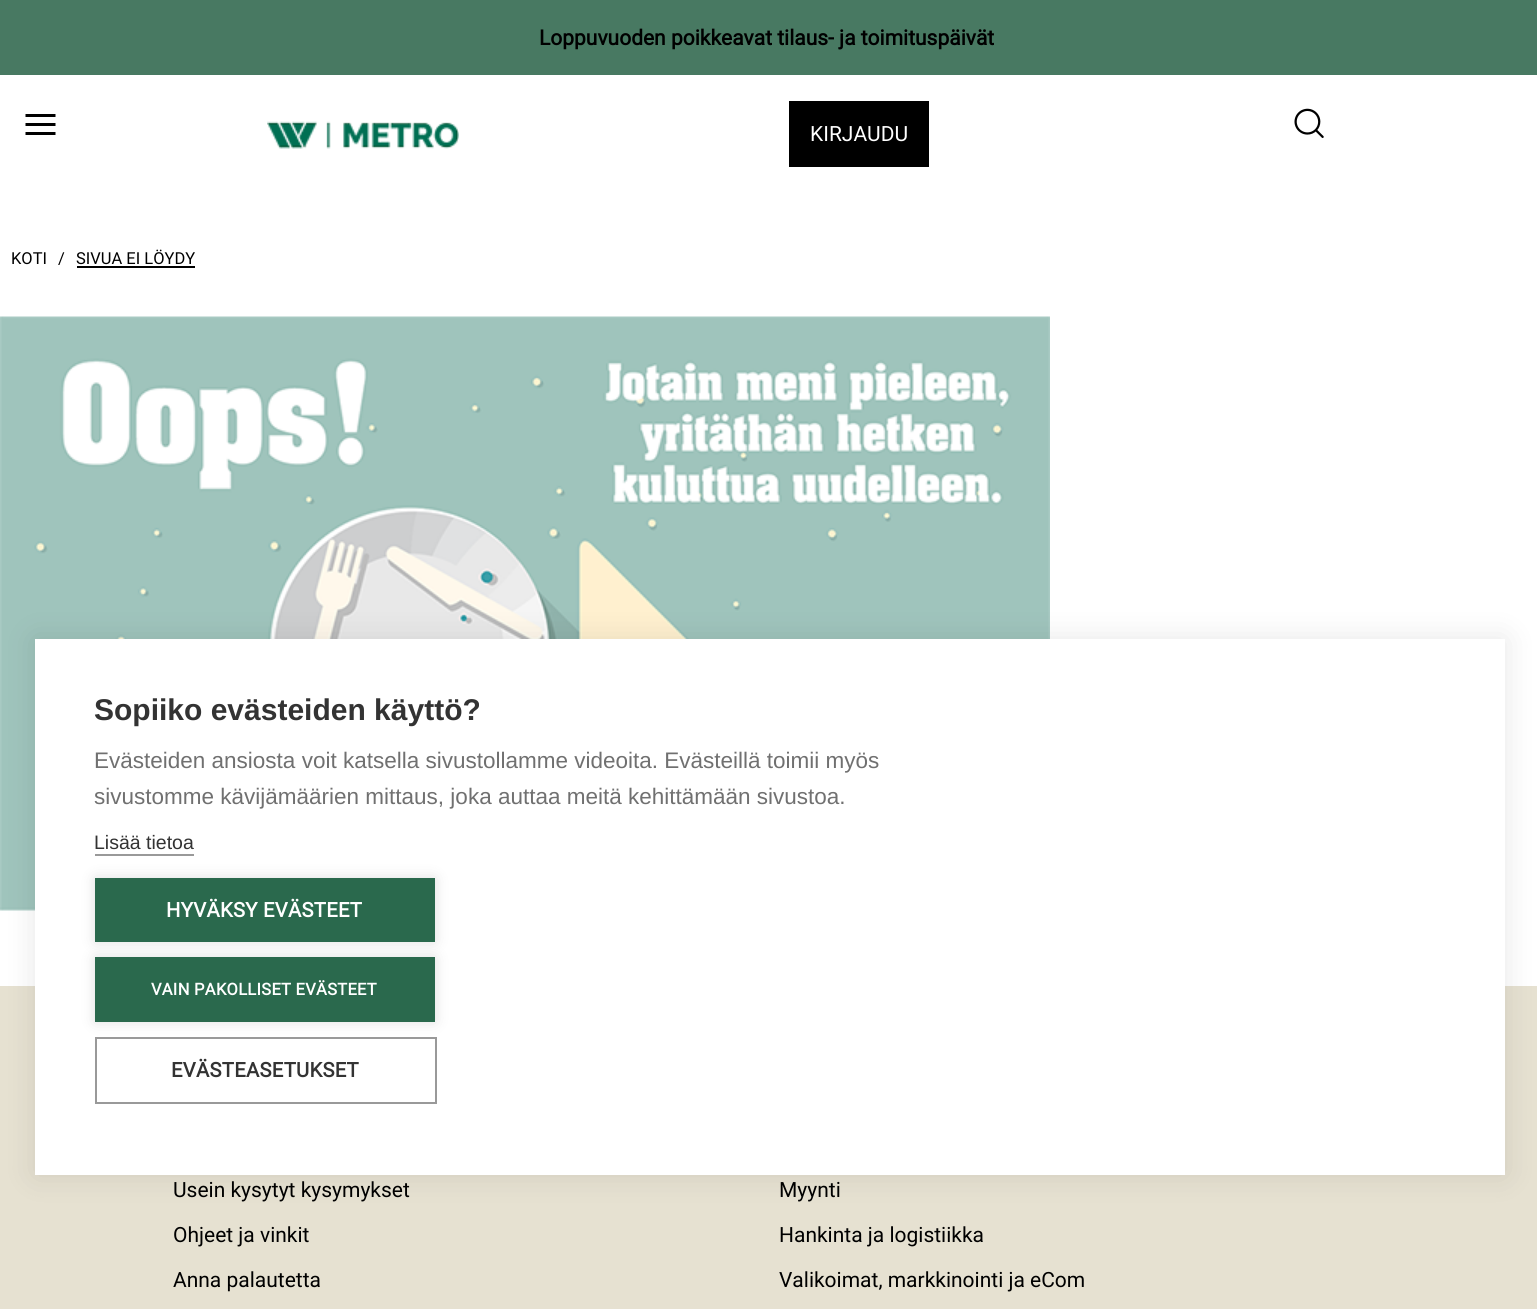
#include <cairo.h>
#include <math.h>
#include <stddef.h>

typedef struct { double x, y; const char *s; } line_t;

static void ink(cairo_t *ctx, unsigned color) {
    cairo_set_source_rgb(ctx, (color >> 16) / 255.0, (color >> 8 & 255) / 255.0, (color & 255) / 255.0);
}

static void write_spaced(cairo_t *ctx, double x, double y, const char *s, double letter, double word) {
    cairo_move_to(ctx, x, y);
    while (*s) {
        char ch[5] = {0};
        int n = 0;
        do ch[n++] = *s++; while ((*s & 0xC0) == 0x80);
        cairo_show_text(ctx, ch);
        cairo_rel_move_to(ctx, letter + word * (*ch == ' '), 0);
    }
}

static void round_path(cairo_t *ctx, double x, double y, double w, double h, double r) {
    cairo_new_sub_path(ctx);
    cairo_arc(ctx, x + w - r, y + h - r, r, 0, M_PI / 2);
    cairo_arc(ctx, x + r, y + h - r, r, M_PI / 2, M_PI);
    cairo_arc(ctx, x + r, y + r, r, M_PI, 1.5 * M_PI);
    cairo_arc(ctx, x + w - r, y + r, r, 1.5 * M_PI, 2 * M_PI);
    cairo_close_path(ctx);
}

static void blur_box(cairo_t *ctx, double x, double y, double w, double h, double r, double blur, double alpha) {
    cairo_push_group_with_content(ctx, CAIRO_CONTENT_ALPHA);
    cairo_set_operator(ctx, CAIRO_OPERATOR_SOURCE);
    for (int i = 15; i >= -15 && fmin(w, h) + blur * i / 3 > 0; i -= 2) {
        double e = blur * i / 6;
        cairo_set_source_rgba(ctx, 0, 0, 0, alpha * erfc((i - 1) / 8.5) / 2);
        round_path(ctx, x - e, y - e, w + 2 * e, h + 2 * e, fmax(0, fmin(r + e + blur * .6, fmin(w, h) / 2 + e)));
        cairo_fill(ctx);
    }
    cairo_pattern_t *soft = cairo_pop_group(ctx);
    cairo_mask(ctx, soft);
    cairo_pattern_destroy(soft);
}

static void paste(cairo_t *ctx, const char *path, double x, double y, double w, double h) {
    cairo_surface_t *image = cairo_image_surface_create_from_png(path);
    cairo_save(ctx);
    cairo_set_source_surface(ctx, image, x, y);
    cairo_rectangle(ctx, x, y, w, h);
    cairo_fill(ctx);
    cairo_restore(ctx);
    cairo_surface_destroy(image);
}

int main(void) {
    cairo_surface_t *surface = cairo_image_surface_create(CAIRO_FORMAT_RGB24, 1537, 1309);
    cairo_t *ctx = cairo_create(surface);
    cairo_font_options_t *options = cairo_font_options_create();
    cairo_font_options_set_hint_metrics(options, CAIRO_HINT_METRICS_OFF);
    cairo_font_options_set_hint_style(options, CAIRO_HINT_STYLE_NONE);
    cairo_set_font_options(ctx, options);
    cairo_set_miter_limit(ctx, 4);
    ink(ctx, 0xFFFFFF);
    cairo_paint(ctx);
    ink(ctx, 0x487962);
    cairo_rectangle(ctx, 0, 0, 1537, 75);
    cairo_fill(ctx);
    cairo_select_font_face(ctx, "Roboto", CAIRO_FONT_SLANT_NORMAL, CAIRO_FONT_WEIGHT_BOLD);
    cairo_set_font_size(ctx, 21);
    ink(ctx, 0x000000);
    cairo_move_to(ctx, 539, 45);
    cairo_show_text(ctx, "Loppuvuoden poikkeavat tilaus- ja toimituspäivät");
    paste(ctx, "media/1.png", 25, 114, 31, 21);
    paste(ctx, "media/2.png", 267, 121, 192, 28);
    cairo_rectangle(ctx, 789, 101, 140, 66);
    cairo_fill(ctx);
    cairo_select_font_face(ctx, "Roboto", CAIRO_FONT_SLANT_NORMAL, CAIRO_FONT_WEIGHT_NORMAL);
    ink(ctx, 0xFFFFFF);
    cairo_move_to(ctx, 810, 141);
    cairo_show_text(ctx, "KIRJAUDU");
    paste(ctx, "media/3.png", 1294, 108, 30, 30);
    cairo_set_font_size(ctx, 16.5);
    ink(ctx, 0x000000);
    {
        static const line_t items[] = {
            {11, 264, "KOTI"},
            {58, 264, "/"},
            {76, 264, "SIVUA EI LÖYDY"},
        };
        for (size_t i = 0; i < sizeof items / sizeof *items; i++) {
            cairo_move_to(ctx, items[i].x, items[i].y);
            cairo_show_text(ctx, items[i].s);
        }
    }
    cairo_rectangle(ctx, 77, 266, 118, 2);
    cairo_fill(ctx);
    paste(ctx, "media/4.png", 0, 316, 1050, 595);
    ink(ctx, 0xE6E1D1);
    cairo_rectangle(ctx, 0, 986, 1537, 323);
    cairo_fill(ctx);
    cairo_set_font_size(ctx, 21);
    ink(ctx, 0x000000);
    {
        static const line_t items[] = {
            {173, 1197, "Usein kysytyt kysymykset"},
            {173, 1242, "Ohjeet ja vinkit"},
            {173, 1287, "Anna palautetta"},
            {779, 1197, "Myynti"},
            {779, 1242, "Hankinta ja logistiikka"},
            {779, 1287, "Valikoimat, markkinointi ja eCom"},
        };
        for (size_t i = 0; i < sizeof items / sizeof *items; i++) {
            cairo_move_to(ctx, items[i].x, items[i].y);
            cairo_show_text(ctx, items[i].s);
        }
    }
    ink(ctx, 0x000000);
    blur_box(ctx, 35, 639, 1470, 536, 0, 15, 0.1);
    ink(ctx, 0xFFFFFF);
    cairo_rectangle(ctx, 35, 639, 1470, 536);
    cairo_fill(ctx);
    cairo_select_font_face(ctx, "Liberation Sans", CAIRO_FONT_SLANT_NORMAL, CAIRO_FONT_WEIGHT_BOLD);
    cairo_set_font_size(ctx, 30);
    ink(ctx, 0x333333);
    cairo_move_to(ctx, 94, 720);
    cairo_show_text(ctx, "Sopiiko evästeiden käyttö?");
    cairo_select_font_face(ctx, "Liberation Sans", CAIRO_FONT_SLANT_NORMAL, CAIRO_FONT_WEIGHT_NORMAL);
    cairo_set_font_size(ctx, 22.5);
    ink(ctx, 0x707070);
    cairo_move_to(ctx, 94, 768);
    cairo_show_text(ctx, "Evästeiden ansiosta voit katsella sivustollamme videoita. Evästeillä toimii myös");
    cairo_move_to(ctx, 94, 804);
    cairo_show_text(ctx, "sivustomme kävijämäärien mittaus, joka auttaa meitä kehittämään sivustoa.");
    cairo_set_font_size(ctx, 19.5);
    ink(ctx, 0x333333);
    cairo_move_to(ctx, 94, 849);
    cairo_show_text(ctx, "Lisää tietoa");
    ink(ctx, 0x999999);
    cairo_rectangle(ctx, 95, 854, 99, 2);
    cairo_fill(ctx);
    ink(ctx, 0x000000);
    blur_box(ctx, 95, 878, 340, 64, 0, 7.5, 0.12);
    ink(ctx, 0x2A694D);
    cairo_rectangle(ctx, 95, 878, 340, 64);
    cairo_fill(ctx);
    cairo_select_font_face(ctx, "Roboto", CAIRO_FONT_SLANT_NORMAL, CAIRO_FONT_WEIGHT_BOLD);
    cairo_set_font_size(ctx, 20.25);
    ink(ctx, 0xFFFFFF);
    write_spaced(ctx, 166, 917, "HYVÄKSY EVÄSTEET", 0.3, 0);
    ink(ctx, 0x000000);
    blur_box(ctx, 95, 957, 340, 65, 0, 7.5, 0.12);
    ink(ctx, 0x2A694D);
    cairo_rectangle(ctx, 95, 957, 340, 65);
    cairo_fill(ctx);
    cairo_set_font_size(ctx, 16.5);
    ink(ctx, 0xFFFFFF);
    write_spaced(ctx, 151, 995, "VAIN PAKOLLISET EVÄSTEET", 0.3, 0);
    cairo_rectangle(ctx, 96, 1038, 340, 65);
    ink(ctx, 0x999999);
    cairo_stroke(ctx);
    cairo_set_font_size(ctx, 20.25);
    ink(ctx, 0x333333);
    write_spaced(ctx, 171, 1077, "EVÄSTEASETUKSET", 0.3, 0);
    cairo_surface_write_to_png(surface, "image.png");
    cairo_font_options_destroy(options);
    cairo_destroy(ctx);
    cairo_surface_destroy(surface);
    return 0;
}
